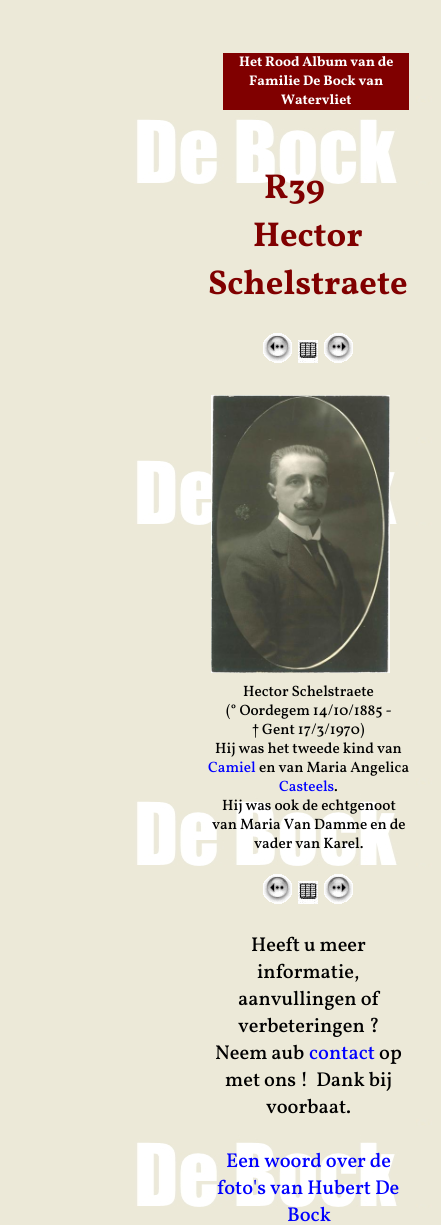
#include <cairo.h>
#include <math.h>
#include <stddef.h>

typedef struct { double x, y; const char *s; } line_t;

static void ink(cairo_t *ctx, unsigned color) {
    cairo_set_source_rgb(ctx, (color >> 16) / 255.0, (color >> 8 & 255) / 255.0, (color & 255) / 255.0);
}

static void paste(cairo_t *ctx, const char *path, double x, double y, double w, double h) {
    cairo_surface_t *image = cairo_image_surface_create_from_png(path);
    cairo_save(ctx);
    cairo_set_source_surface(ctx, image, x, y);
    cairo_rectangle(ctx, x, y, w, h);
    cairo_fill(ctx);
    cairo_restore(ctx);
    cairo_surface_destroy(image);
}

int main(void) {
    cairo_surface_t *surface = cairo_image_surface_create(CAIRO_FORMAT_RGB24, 441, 1225);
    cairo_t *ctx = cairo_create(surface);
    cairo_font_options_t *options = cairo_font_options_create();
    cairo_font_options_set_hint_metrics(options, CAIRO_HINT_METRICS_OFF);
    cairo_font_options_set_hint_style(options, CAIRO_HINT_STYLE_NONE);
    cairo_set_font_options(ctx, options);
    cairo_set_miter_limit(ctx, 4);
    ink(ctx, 0xFFFFFF);
    cairo_paint(ctx);
    paste(ctx, "media/1.png", 0, 0, 441, 1225);
    ink(ctx, 0x800000);
    cairo_rectangle(ctx, 223, 53, 186, 57);
    cairo_fill(ctx);
    cairo_select_font_face(ctx, "Vollkorn", CAIRO_FONT_SLANT_NORMAL, CAIRO_FONT_WEIGHT_BOLD);
    cairo_set_font_size(ctx, 14);
    ink(ctx, 0xFFFFFF);
    {
        static const line_t items[] = {
            {239, 66, "Het Rood Album van de"},
            {249, 85, "Familie De Bock van"},
            {281, 104, "Watervliet"},
        };
        for (size_t i = 0; i < sizeof items / sizeof *items; i++) {
            cairo_move_to(ctx, items[i].x, items[i].y);
            cairo_show_text(ctx, items[i].s);
        }
    }
    cairo_set_font_size(ctx, 34.5);
    ink(ctx, 0x800000);
    {
        static const line_t items[] = {
            {264, 198, "R39"},
            {253, 246, "Hector"},
            {208, 294, "Schelstraete"},
        };
        for (size_t i = 0; i < sizeof items / sizeof *items; i++) {
            cairo_move_to(ctx, items[i].x, items[i].y);
            cairo_show_text(ctx, items[i].s);
        }
    }
    paste(ctx, "media/2.png", 263, 333, 29, 30);
    paste(ctx, "media/3.png", 298, 340, 20, 23);
    paste(ctx, "media/4.png", 324, 333, 29, 30);
    paste(ctx, "media/5.png", 211, 395, 179, 278);
    cairo_select_font_face(ctx, "Vollkorn Medium", CAIRO_FONT_SLANT_NORMAL, CAIRO_FONT_WEIGHT_NORMAL);
    cairo_set_font_size(ctx, 15);
    ink(ctx, 0x000000);
    {
        static const line_t items[] = {
            {243, 696, "Hector Schelstraete"},
            {226, 715, "(° Oordegem 14/10/1885 -"},
            {252, 734, "† Gent 17/3/1970)"},
            {215, 753, "Hij was het tweede kind van"},
        };
        for (size_t i = 0; i < sizeof items / sizeof *items; i++) {
            cairo_move_to(ctx, items[i].x, items[i].y);
            cairo_show_text(ctx, items[i].s);
        }
    }
    ink(ctx, 0x0000FF);
    cairo_move_to(ctx, 208, 772);
    cairo_show_text(ctx, "Camiel");
    ink(ctx, 0x000000);
    cairo_move_to(ctx, 259, 772);
    cairo_show_text(ctx, "en van Maria Angelica");
    ink(ctx, 0x0000FF);
    cairo_move_to(ctx, 279, 791);
    cairo_show_text(ctx, "Casteels");
    ink(ctx, 0x000000);
    {
        static const line_t items[] = {
            {334, 791, "."},
            {222, 810, "Hij was ook de echtgenoot"},
            {212, 829, "van Maria Van Damme en de"},
            {254, 848, "vader van Karel."},
        };
        for (size_t i = 0; i < sizeof items / sizeof *items; i++) {
            cairo_move_to(ctx, items[i].x, items[i].y);
            cairo_show_text(ctx, items[i].s);
        }
    }
    paste(ctx, "media/2.png", 263, 874, 29, 30);
    paste(ctx, "media/3.png", 298, 881, 20, 23);
    paste(ctx, "media/4.png", 324, 874, 29, 30);
    cairo_set_font_size(ctx, 20);
    {
        static const line_t items[] = {
            {251, 951, "Heeft u meer"},
            {257, 978, "informatie,"},
            {238, 1005, "aanvullingen of"},
            {238, 1032, "verbeteringen ?"},
            {215, 1059, "Neem aub"},
        };
        for (size_t i = 0; i < sizeof items / sizeof *items; i++) {
            cairo_move_to(ctx, items[i].x, items[i].y);
            cairo_show_text(ctx, items[i].s);
        }
    }
    ink(ctx, 0x0000FF);
    cairo_move_to(ctx, 309, 1059);
    cairo_show_text(ctx, "contact");
    ink(ctx, 0x000000);
    {
        static const line_t items[] = {
            {379, 1059, "op"},
            {225, 1086, "met ons !  Dank bij"},
            {266, 1113, "voorbaat."},
        };
        for (size_t i = 0; i < sizeof items / sizeof *items; i++) {
            cairo_move_to(ctx, items[i].x, items[i].y);
            cairo_show_text(ctx, items[i].s);
        }
    }
    ink(ctx, 0x0000FF);
    {
        static const line_t items[] = {
            {226, 1167, "Een woord over de"},
            {217, 1194, "foto's van Hubert De"},
            {287, 1221, "Bock"},
        };
        for (size_t i = 0; i < sizeof items / sizeof *items; i++) {
            cairo_move_to(ctx, items[i].x, items[i].y);
            cairo_show_text(ctx, items[i].s);
        }
    }
    cairo_surface_write_to_png(surface, "image.png");
    cairo_font_options_destroy(options);
    cairo_destroy(ctx);
    cairo_surface_destroy(surface);
    return 0;
}
